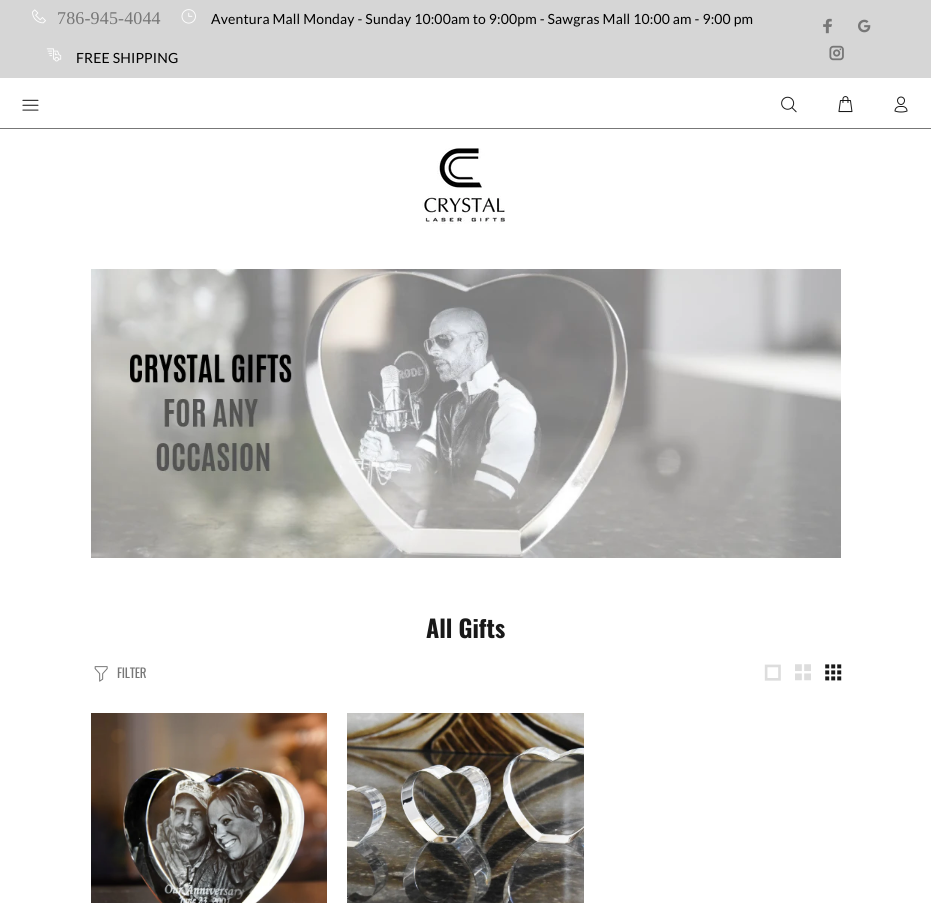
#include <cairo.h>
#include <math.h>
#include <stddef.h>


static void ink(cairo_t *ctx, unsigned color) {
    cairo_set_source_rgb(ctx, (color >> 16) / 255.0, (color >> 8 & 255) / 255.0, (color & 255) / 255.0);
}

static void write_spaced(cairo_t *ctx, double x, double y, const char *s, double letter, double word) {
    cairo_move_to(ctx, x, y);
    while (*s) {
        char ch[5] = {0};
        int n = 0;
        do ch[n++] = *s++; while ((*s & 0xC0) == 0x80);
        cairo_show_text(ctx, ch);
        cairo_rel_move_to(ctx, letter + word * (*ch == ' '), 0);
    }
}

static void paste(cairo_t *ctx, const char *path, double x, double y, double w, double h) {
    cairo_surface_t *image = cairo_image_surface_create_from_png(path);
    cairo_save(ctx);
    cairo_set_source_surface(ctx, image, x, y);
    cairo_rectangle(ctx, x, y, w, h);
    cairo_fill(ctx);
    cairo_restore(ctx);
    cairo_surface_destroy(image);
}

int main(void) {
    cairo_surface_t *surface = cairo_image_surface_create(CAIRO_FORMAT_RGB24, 931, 903);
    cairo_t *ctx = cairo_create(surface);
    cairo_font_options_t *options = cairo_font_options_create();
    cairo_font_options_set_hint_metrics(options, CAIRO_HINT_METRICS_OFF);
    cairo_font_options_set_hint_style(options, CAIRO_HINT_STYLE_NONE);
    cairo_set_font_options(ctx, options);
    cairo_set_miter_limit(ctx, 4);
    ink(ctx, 0xFFFFFF);
    cairo_paint(ctx);
    ink(ctx, 0xD6D6D6);
    cairo_rectangle(ctx, 0, 0, 931, 78);
    cairo_fill(ctx);
    paste(ctx, "media/1.png", 32, 9, 14, 15);
    cairo_select_font_face(ctx, "Liberation Serif", CAIRO_FONT_SLANT_NORMAL, CAIRO_FONT_WEIGHT_NORMAL);
    cairo_set_font_size(ctx, 18);
    ink(ctx, 0x777777);
    write_spaced(ctx, 57, 24, "786-945-4044", 0.15, 0);
    paste(ctx, "media/2.png", 181, 9, 15, 15);
    cairo_select_font_face(ctx, "Lato", CAIRO_FONT_SLANT_NORMAL, CAIRO_FONT_WEIGHT_NORMAL);
    cairo_set_font_size(ctx, 14);
    ink(ctx, 0x000000);
    write_spaced(ctx, 211, 24, "Aventura Mall Monday - Sunday 10:00am to 9:00pm - Sawgras Mall 10:00 am - 9:00 pm", 0.15, 0);
    paste(ctx, "media/3.png", 46, 48, 16, 14);
    write_spaced(ctx, 76, 63, "FREE SHIPPING", 0.15, 0);
    paste(ctx, "media/4.png", 823, 18, 9, 16);
    paste(ctx, "media/5.png", 858, 19, 13, 14);
    paste(ctx, "media/6.png", 829, 45, 15, 16);
    paste(ctx, "media/7.png", 22, 99, 17, 12);
    paste(ctx, "media/8.png", 781, 96, 16, 17);
    paste(ctx, "media/9.png", 838, 96, 15, 17);
    paste(ctx, "media/10.png", 894, 96, 14, 17);
    ink(ctx, 0x777777);
    cairo_rectangle(ctx, 0, 128, 931, 1);
    cairo_fill(ctx);
    paste(ctx, "media/11.png", 422, 148, 83, 76);
    paste(ctx, "media/12.png", 91, 269, 750, 289);
    cairo_select_font_face(ctx, "Oswald", CAIRO_FONT_SLANT_NORMAL, CAIRO_FONT_WEIGHT_BOLD);
    cairo_set_font_size(ctx, 24);
    ink(ctx, 0x191919);
    cairo_move_to(ctx, 426, 638);
    cairo_show_text(ctx, "All Gifts");
    paste(ctx, "media/13.png", 94, 666, 14, 16);
    cairo_select_font_face(ctx, "Oswald", CAIRO_FONT_SLANT_NORMAL, CAIRO_FONT_WEIGHT_NORMAL);
    cairo_set_font_size(ctx, 13);
    ink(ctx, 0x777777);
    write_spaced(ctx, 117, 678, "FILTER", -0.25, 0);
    paste(ctx, "media/14.png", 764, 664, 17, 17);
    paste(ctx, "media/15.png", 795, 664, 16, 17);
    paste(ctx, "media/16.png", 825, 664, 17, 17);
    paste(ctx, "media/17.png", 91, 713, 236, 190);
    paste(ctx, "media/18.png", 347, 713, 237, 190);
    cairo_surface_write_to_png(surface, "image.png");
    cairo_font_options_destroy(options);
    cairo_destroy(ctx);
    cairo_surface_destroy(surface);
    return 0;
}
